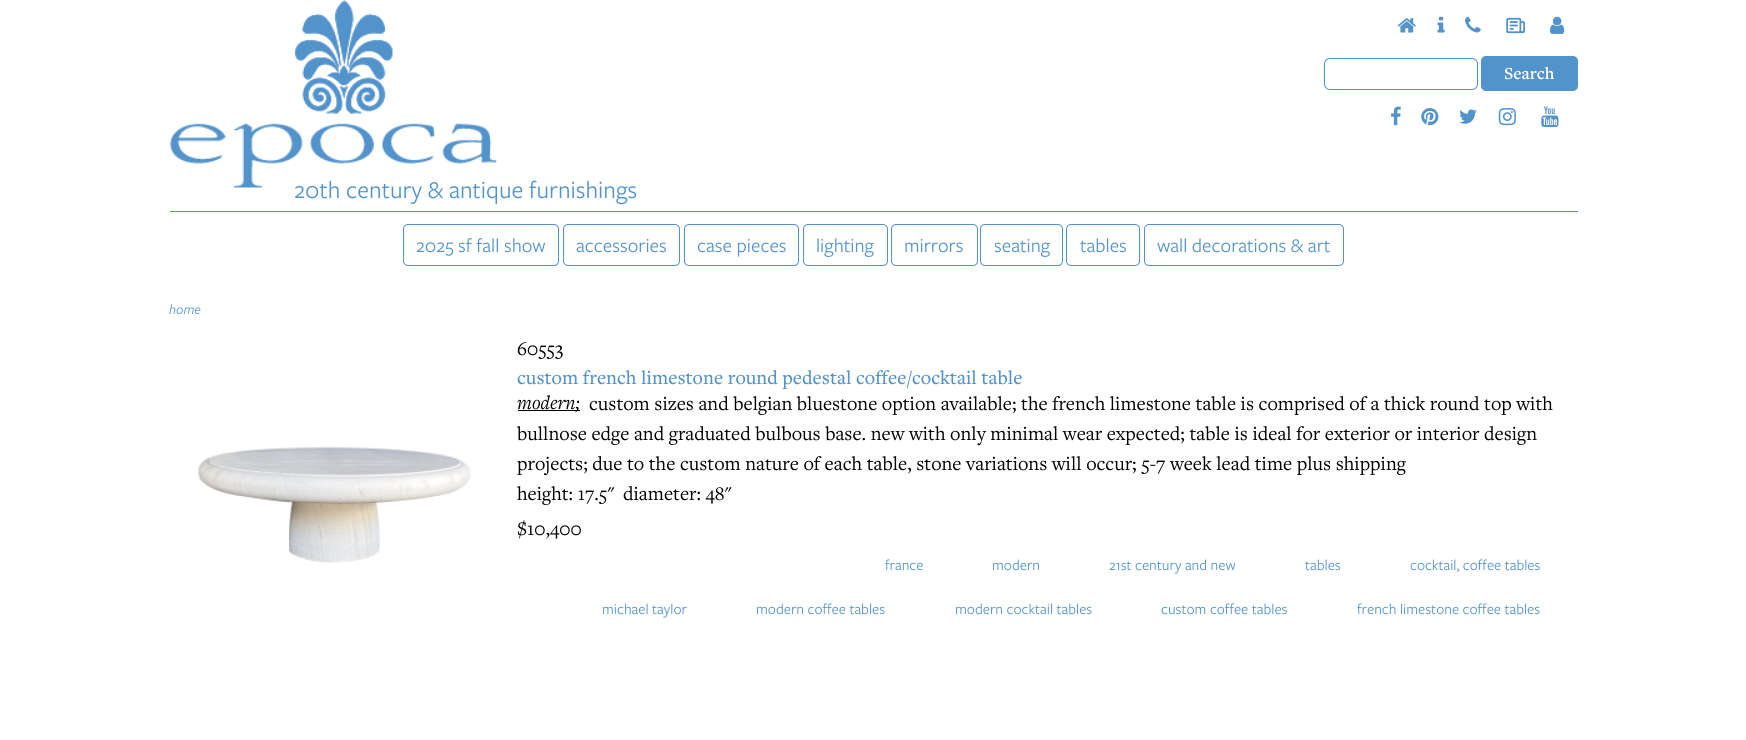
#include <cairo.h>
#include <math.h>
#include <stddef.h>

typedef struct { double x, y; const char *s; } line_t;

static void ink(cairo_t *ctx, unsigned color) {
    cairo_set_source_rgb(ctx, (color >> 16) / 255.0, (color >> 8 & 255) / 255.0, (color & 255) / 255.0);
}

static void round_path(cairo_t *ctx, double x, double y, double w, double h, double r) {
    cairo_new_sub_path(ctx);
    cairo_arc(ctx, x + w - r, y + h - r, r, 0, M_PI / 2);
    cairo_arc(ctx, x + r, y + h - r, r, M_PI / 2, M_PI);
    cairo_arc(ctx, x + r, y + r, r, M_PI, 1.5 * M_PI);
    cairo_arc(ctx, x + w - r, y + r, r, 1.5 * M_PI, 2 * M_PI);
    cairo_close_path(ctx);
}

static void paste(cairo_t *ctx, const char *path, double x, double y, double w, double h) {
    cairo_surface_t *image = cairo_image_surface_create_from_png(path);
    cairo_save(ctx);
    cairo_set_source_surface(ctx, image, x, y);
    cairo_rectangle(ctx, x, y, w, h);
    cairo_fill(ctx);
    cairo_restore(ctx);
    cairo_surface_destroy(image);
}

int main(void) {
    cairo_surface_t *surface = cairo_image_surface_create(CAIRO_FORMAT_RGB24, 1746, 740);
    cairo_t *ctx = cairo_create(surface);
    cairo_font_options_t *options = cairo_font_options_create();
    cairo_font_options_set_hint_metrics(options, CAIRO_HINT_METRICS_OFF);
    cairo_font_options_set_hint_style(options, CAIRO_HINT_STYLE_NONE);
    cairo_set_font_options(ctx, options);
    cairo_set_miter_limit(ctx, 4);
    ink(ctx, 0xFFFFFF);
    cairo_paint(ctx);
    paste(ctx, "media/1.png", 1397, 18, 19, 15);
    paste(ctx, "media/2.png", 1437, 16, 8, 17);
    paste(ctx, "media/3.png", 1465, 16, 16, 17);
    paste(ctx, "media/4.png", 1506, 17, 19, 17);
    paste(ctx, "media/5.png", 1550, 16, 15, 18);
    round_path(ctx, 1324.5, 58.5, 153, 31, 5.5);
    ink(ctx, 0x5393CC);
    cairo_set_line_width(ctx, 1);
    cairo_stroke(ctx);
    round_path(ctx, 1481, 56, 97, 35, 5);
    cairo_fill(ctx);
    cairo_select_font_face(ctx, "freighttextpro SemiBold", CAIRO_FONT_SLANT_NORMAL, CAIRO_FONT_WEIGHT_NORMAL);
    cairo_set_font_size(ctx, 17.5);
    ink(ctx, 0xFFFFFF);
    cairo_move_to(ctx, 1504, 79);
    cairo_show_text(ctx, "Search");
    paste(ctx, "media/6.png", 1391, 106, 10, 20);
    paste(ctx, "media/7.png", 1421, 108, 18, 18);
    paste(ctx, "media/8.png", 1459, 109, 18, 15);
    paste(ctx, "media/9.png", 1498, 108, 18, 18);
    paste(ctx, "media/10.png", 1541, 106, 18, 22);
    paste(ctx, "media/11.png", 170, 0, 327, 188);
    cairo_select_font_face(ctx, "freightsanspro", CAIRO_FONT_SLANT_NORMAL, CAIRO_FONT_WEIGHT_NORMAL);
    cairo_set_font_size(ctx, 25);
    ink(ctx, 0x5393CC);
    cairo_move_to(ctx, 294, 198);
    cairo_show_text(ctx, "20th century & antique furnishings");
    cairo_rectangle(ctx, 170, 211, 1408, 1);
    cairo_fill(ctx);
    round_path(ctx, 403.5, 224.5, 155, 41, 4.5);
    cairo_stroke(ctx);
    cairo_set_font_size(ctx, 20);
    cairo_move_to(ctx, 416, 252);
    cairo_show_text(ctx, "2025 sf fall show");
    round_path(ctx, 563.5, 224.5, 116, 41, 4.5);
    cairo_stroke(ctx);
    cairo_move_to(ctx, 576, 252);
    cairo_show_text(ctx, "accessories");
    round_path(ctx, 684.5, 224.5, 114, 41, 4.5);
    cairo_stroke(ctx);
    cairo_move_to(ctx, 697, 252);
    cairo_show_text(ctx, "case pieces");
    round_path(ctx, 803.5, 224.5, 84, 41, 4.5);
    cairo_stroke(ctx);
    cairo_move_to(ctx, 816, 252);
    cairo_show_text(ctx, "lighting");
    round_path(ctx, 891.5, 224.5, 86, 41, 4.5);
    cairo_stroke(ctx);
    cairo_move_to(ctx, 904, 252);
    cairo_show_text(ctx, "mirrors");
    round_path(ctx, 980.5, 224.5, 82, 41, 4.5);
    cairo_stroke(ctx);
    cairo_move_to(ctx, 994, 252);
    cairo_show_text(ctx, "seating");
    round_path(ctx, 1066.5, 224.5, 73, 41, 4.5);
    cairo_stroke(ctx);
    cairo_move_to(ctx, 1080, 252);
    cairo_show_text(ctx, "tables");
    round_path(ctx, 1144.5, 224.5, 199, 41, 4.5);
    cairo_stroke(ctx);
    cairo_move_to(ctx, 1157, 252);
    cairo_show_text(ctx, "wall decorations & art");
    cairo_select_font_face(ctx, "freightsanspro", CAIRO_FONT_SLANT_ITALIC, CAIRO_FONT_WEIGHT_NORMAL);
    cairo_set_font_size(ctx, 14);
    cairo_move_to(ctx, 169, 314);
    cairo_show_text(ctx, "home");
    paste(ctx, "media/12.png", 198, 447, 273, 116);
    cairo_select_font_face(ctx, "freighttextpro", CAIRO_FONT_SLANT_NORMAL, CAIRO_FONT_WEIGHT_NORMAL);
    cairo_set_font_size(ctx, 20);
    ink(ctx, 0x000000);
    cairo_move_to(ctx, 517, 355);
    cairo_show_text(ctx, "60553");
    cairo_select_font_face(ctx, "freighttextpro Medium", CAIRO_FONT_SLANT_NORMAL, CAIRO_FONT_WEIGHT_NORMAL);
    ink(ctx, 0x5393CC);
    cairo_move_to(ctx, 517, 384);
    cairo_show_text(ctx, "custom french limestone round pedestal coffee/cocktail table");
    ink(ctx, 0x000000);
    cairo_rectangle(ctx, 518, 410, 62, 1);
    cairo_fill(ctx);
    cairo_select_font_face(ctx, "freighttextpro", CAIRO_FONT_SLANT_ITALIC, CAIRO_FONT_WEIGHT_NORMAL);
    cairo_move_to(ctx, 517, 409);
    cairo_show_text(ctx, "modern;");
    cairo_select_font_face(ctx, "freighttextpro", CAIRO_FONT_SLANT_NORMAL, CAIRO_FONT_WEIGHT_NORMAL);
    {
        static const line_t items[] = {
            {589, 410, "custom sizes and belgian bluestone option available; the french limestone table is comprised of a thick round top with"},
            {517, 440, "bullnose edge and graduated bulbous base. new with only minimal wear expected; table is ideal for exterior or interior design"},
            {517, 470, "projects; due to the custom nature of each table, stone variations will occur; 5-7 week lead time plus shipping"},
            {517, 500, "height: 17.5\""},
            {623, 500, "diameter: 48\""},
            {517, 535, "$10,400"},
        };
        for (size_t i = 0; i < sizeof items / sizeof *items; i++) {
            cairo_move_to(ctx, items[i].x, items[i].y);
            cairo_show_text(ctx, items[i].s);
        }
    }
    cairo_select_font_face(ctx, "freightsanspro", CAIRO_FONT_SLANT_NORMAL, CAIRO_FONT_WEIGHT_NORMAL);
    cairo_set_font_size(ctx, 15.25);
    ink(ctx, 0x5393CC);
    {
        static const line_t items[] = {
            {885, 570, "france"},
            {992, 570, "modern"},
            {1109, 570, "21st century and new"},
            {1305, 570, "tables"},
            {1410, 570, "cocktail, coffee tables"},
            {602, 614, "michael taylor"},
            {756, 614, "modern coffee tables"},
            {955, 614, "modern cocktail tables"},
            {1161, 614, "custom coffee tables"},
            {1357, 614, "french limestone coffee tables"},
        };
        for (size_t i = 0; i < sizeof items / sizeof *items; i++) {
            cairo_move_to(ctx, items[i].x, items[i].y);
            cairo_show_text(ctx, items[i].s);
        }
    }
    cairo_surface_write_to_png(surface, "image.png");
    cairo_font_options_destroy(options);
    cairo_destroy(ctx);
    cairo_surface_destroy(surface);
    return 0;
}
